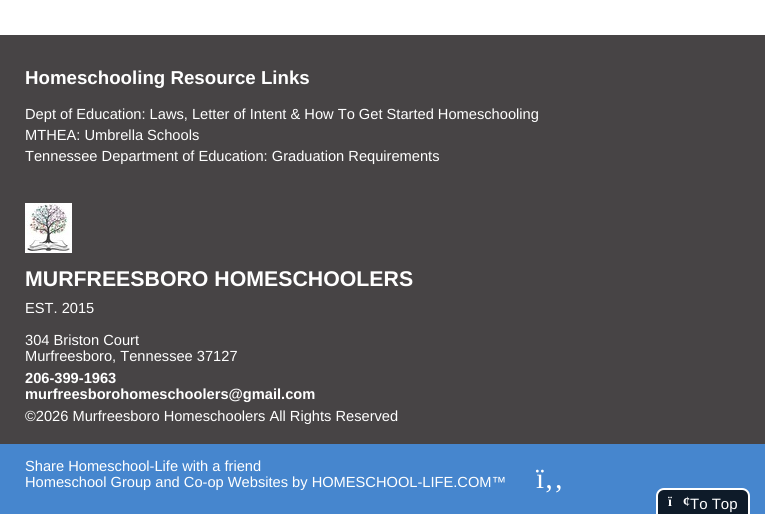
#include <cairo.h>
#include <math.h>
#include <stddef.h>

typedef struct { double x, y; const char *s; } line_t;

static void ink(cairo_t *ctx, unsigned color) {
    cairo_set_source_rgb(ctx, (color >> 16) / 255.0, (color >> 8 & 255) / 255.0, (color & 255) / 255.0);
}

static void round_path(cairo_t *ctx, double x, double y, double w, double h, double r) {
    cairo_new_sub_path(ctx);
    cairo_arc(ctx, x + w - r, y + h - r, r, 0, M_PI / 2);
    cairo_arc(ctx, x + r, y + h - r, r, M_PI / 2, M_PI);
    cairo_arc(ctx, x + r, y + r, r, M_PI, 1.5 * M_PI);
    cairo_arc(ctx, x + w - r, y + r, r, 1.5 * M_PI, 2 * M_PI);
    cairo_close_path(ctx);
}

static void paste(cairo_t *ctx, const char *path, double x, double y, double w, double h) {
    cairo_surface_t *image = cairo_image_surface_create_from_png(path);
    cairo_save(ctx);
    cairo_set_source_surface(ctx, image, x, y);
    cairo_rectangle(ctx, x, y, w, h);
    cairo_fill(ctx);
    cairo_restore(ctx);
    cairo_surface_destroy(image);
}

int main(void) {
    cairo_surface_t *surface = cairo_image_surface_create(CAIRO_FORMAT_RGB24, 765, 514);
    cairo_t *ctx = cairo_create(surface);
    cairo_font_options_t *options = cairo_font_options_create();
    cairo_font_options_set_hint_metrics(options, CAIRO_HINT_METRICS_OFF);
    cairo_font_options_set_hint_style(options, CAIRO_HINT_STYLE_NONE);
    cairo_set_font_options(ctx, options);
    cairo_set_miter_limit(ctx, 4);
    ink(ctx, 0xFFFFFF);
    cairo_paint(ctx);
    ink(ctx, 0x474445);
    cairo_rectangle(ctx, 0, 35, 765, 409);
    cairo_fill(ctx);
    cairo_select_font_face(ctx, "Liberation Sans", CAIRO_FONT_SLANT_NORMAL, CAIRO_FONT_WEIGHT_BOLD);
    cairo_set_font_size(ctx, 18.7);
    ink(ctx, 0xFFFFFF);
    cairo_move_to(ctx, 25, 84);
    cairo_show_text(ctx, "Homeschooling Resource Links");
    cairo_select_font_face(ctx, "Liberation Sans", CAIRO_FONT_SLANT_NORMAL, CAIRO_FONT_WEIGHT_NORMAL);
    cairo_set_font_size(ctx, 14.65);
    {
        static const line_t items[] = {
            {25, 119, "Dept of Education: Laws, Letter of Intent & How To Get Started Homeschooling"},
            {25, 140, "MTHEA: Umbrella Schools"},
            {25, 161, "Tennessee Department of Education: Graduation Requirements"},
        };
        for (size_t i = 0; i < sizeof items / sizeof *items; i++) {
            cairo_move_to(ctx, items[i].x, items[i].y);
            cairo_show_text(ctx, items[i].s);
        }
    }
    paste(ctx, "media/1.png", 25, 203, 47, 50);
    cairo_select_font_face(ctx, "Liberation Sans", CAIRO_FONT_SLANT_NORMAL, CAIRO_FONT_WEIGHT_BOLD);
    cairo_set_font_size(ctx, 21.3);
    cairo_move_to(ctx, 25, 286);
    cairo_show_text(ctx, "MURFREESBORO HOMESCHOOLERS");
    cairo_select_font_face(ctx, "Liberation Sans", CAIRO_FONT_SLANT_NORMAL, CAIRO_FONT_WEIGHT_NORMAL);
    cairo_set_font_size(ctx, 14.65);
    {
        static const line_t items[] = {
            {25, 313, "EST. 2015"},
            {25, 345, "304 Briston Court"},
            {25, 361, "Murfreesboro, Tennessee 37127"},
        };
        for (size_t i = 0; i < sizeof items / sizeof *items; i++) {
            cairo_move_to(ctx, items[i].x, items[i].y);
            cairo_show_text(ctx, items[i].s);
        }
    }
    cairo_select_font_face(ctx, "Liberation Sans", CAIRO_FONT_SLANT_NORMAL, CAIRO_FONT_WEIGHT_BOLD);
    cairo_move_to(ctx, 25, 383);
    cairo_show_text(ctx, "206-399-1963");
    cairo_move_to(ctx, 25, 399);
    cairo_show_text(ctx, "murfreesborohomeschoolers@gmail.com");
    cairo_select_font_face(ctx, "Liberation Sans", CAIRO_FONT_SLANT_NORMAL, CAIRO_FONT_WEIGHT_NORMAL);
    cairo_move_to(ctx, 25, 421);
    cairo_show_text(ctx, "©2026 Murfreesboro Homeschoolers All Rights Reserved");
    ink(ctx, 0x4686CE);
    cairo_rectangle(ctx, 0, 444, 765, 70);
    cairo_fill(ctx);
    ink(ctx, 0xFFFFFF);
    cairo_move_to(ctx, 25, 471);
    cairo_show_text(ctx, "Share Homeschool-Life with a friend");
    cairo_move_to(ctx, 25, 487);
    cairo_show_text(ctx, "Homeschool Group and Co-op Websites by HOMESCHOOL-LIFE.COM™");
    cairo_select_font_face(ctx, "Liberation Serif", CAIRO_FONT_SLANT_NORMAL, CAIRO_FONT_WEIGHT_NORMAL);
    cairo_set_font_size(ctx, 29);
    cairo_move_to(ctx, 536, 488);
    cairo_show_text(ctx, "ï‚‚");
    ink(ctx, 0x0E1B29);
    round_path(ctx, 657, 489, 92, 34, 7);
    cairo_fill_preserve(ctx);
    ink(ctx, 0xFFFFFF);
    cairo_stroke(ctx);
    cairo_select_font_face(ctx, "Liberation Serif", CAIRO_FONT_SLANT_NORMAL, CAIRO_FONT_WEIGHT_BOLD);
    cairo_set_font_size(ctx, 14);
    cairo_move_to(ctx, 668, 506);
    cairo_show_text(ctx, "ï");
    cairo_move_to(ctx, 683, 506);
    cairo_show_text(ctx, "¢");
    cairo_select_font_face(ctx, "Liberation Sans", CAIRO_FONT_SLANT_NORMAL, CAIRO_FONT_WEIGHT_NORMAL);
    cairo_set_font_size(ctx, 15);
    cairo_move_to(ctx, 690, 509);
    cairo_show_text(ctx, "To Top");
    cairo_surface_write_to_png(surface, "image.png");
    cairo_font_options_destroy(options);
    cairo_destroy(ctx);
    cairo_surface_destroy(surface);
    return 0;
}
